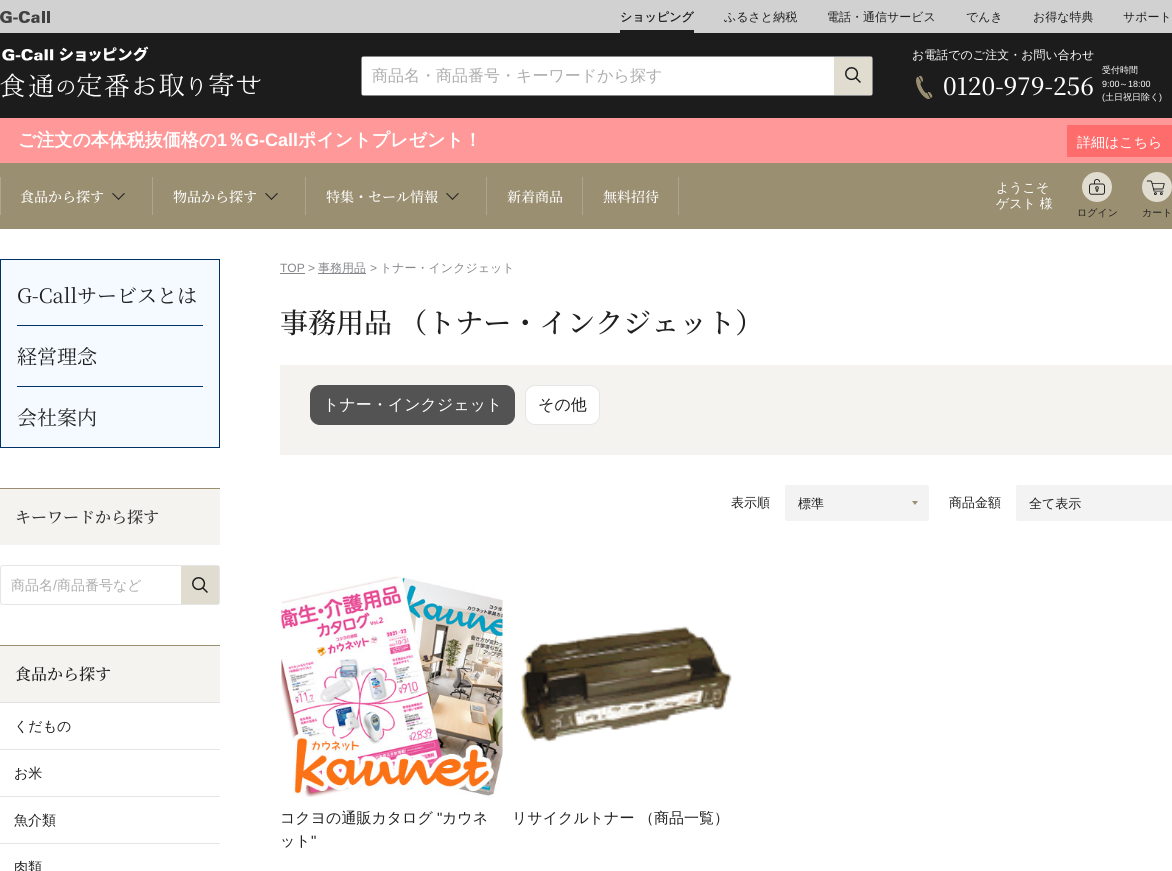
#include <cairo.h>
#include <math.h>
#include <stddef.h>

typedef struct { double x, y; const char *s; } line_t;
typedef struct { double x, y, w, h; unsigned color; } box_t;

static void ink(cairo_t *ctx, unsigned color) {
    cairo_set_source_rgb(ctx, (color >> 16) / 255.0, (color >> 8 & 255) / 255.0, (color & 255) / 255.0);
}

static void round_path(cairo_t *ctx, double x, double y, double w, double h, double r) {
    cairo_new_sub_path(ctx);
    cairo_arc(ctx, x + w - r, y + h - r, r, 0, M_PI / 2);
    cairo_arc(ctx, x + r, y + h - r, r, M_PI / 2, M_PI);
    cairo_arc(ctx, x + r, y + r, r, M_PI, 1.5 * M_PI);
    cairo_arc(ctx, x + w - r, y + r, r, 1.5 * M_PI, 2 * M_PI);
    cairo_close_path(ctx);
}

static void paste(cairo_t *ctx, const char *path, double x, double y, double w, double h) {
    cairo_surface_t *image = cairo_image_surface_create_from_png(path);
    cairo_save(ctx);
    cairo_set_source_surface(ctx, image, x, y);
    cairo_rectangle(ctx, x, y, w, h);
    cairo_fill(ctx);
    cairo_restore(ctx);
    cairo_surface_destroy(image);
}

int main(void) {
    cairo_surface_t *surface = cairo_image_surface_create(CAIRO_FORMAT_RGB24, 1172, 871);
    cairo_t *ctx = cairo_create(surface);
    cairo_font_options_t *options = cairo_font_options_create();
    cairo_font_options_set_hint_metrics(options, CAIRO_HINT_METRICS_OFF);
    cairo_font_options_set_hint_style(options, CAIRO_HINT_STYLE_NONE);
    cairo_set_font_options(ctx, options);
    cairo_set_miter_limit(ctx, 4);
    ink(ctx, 0xFFFFFF);
    cairo_paint(ctx);
    ink(ctx, 0xD1D1D1);
    cairo_rectangle(ctx, 0, 0, 1172, 33);
    cairo_fill(ctx);
    paste(ctx, "media/1.png", 0, 11, 50, 12);
    cairo_select_font_face(ctx, "WenQuanYi Zen Hei", CAIRO_FONT_SLANT_NORMAL, CAIRO_FONT_WEIGHT_BOLD);
    cairo_set_font_size(ctx, 12);
    ink(ctx, 0x202020);
    cairo_move_to(ctx, 620, 21);
    cairo_show_text(ctx, "ショッピング");
    ink(ctx, 0x1C1C1C);
    cairo_rectangle(ctx, 620, 30, 74, 3);
    cairo_fill(ctx);
    cairo_select_font_face(ctx, "WenQuanYi Zen Hei Medium", CAIRO_FONT_SLANT_NORMAL, CAIRO_FONT_WEIGHT_NORMAL);
    ink(ctx, 0x202020);
    {
        static const line_t items[] = {
            {724, 21, "ふるさと納税"},
            {827, 21, "電話・通信サービス"},
            {966, 21, "でんき"},
            {1033, 21, "お得な特典"},
            {1123, 21, "サポート"},
        };
        for (size_t i = 0; i < sizeof items / sizeof *items; i++) {
            cairo_move_to(ctx, items[i].x, items[i].y);
            cairo_show_text(ctx, items[i].s);
        }
    }
    ink(ctx, 0x1C1C1C);
    cairo_rectangle(ctx, 0, 33, 1172, 85);
    cairo_fill(ctx);
    paste(ctx, "media/2.png", 0, 46, 261, 52);
    round_path(ctx, 361.5, 56.5, 511, 39, 2.5);
    ink(ctx, 0x86878B);
    cairo_set_line_width(ctx, 1);
    cairo_stroke(ctx);
    ink(ctx, 0xFFFFFF);
    cairo_rectangle(ctx, 362, 57, 472, 38);
    cairo_fill(ctx);
    cairo_set_font_size(ctx, 16);
    ink(ctx, 0xADADAD);
    cairo_move_to(ctx, 372, 81);
    cairo_show_text(ctx, "商品名・商品番号・キーワードから探す");
    ink(ctx, 0xE1DCD0);
    cairo_rectangle(ctx, 834, 57, 38, 38);
    cairo_fill(ctx);
    paste(ctx, "media/3.png", 845, 67, 16, 16);
    cairo_set_font_size(ctx, 12);
    ink(ctx, 0xFFFFFF);
    cairo_move_to(ctx, 912, 59);
    cairo_show_text(ctx, "お電話でのご注文・お問い合わせ");
    paste(ctx, "media/4.png", 916, 75, 17, 24);
    cairo_select_font_face(ctx, "Noto Serif JP Medium", CAIRO_FONT_SLANT_NORMAL, CAIRO_FONT_WEIGHT_NORMAL);
    cairo_set_font_size(ctx, 24);
    cairo_move_to(ctx, 943, 95);
    cairo_show_text(ctx, "0120-979-256");
    cairo_select_font_face(ctx, "WenQuanYi Zen Hei Medium", CAIRO_FONT_SLANT_NORMAL, CAIRO_FONT_WEIGHT_NORMAL);
    cairo_set_font_size(ctx, 9);
    cairo_move_to(ctx, 1102, 73);
    cairo_show_text(ctx, "受付時間");
    cairo_select_font_face(ctx, "Liberation Sans", CAIRO_FONT_SLANT_NORMAL, CAIRO_FONT_WEIGHT_NORMAL);
    cairo_move_to(ctx, 1102, 87);
    cairo_show_text(ctx, "9:00");
    cairo_select_font_face(ctx, "WenQuanYi Zen Hei Medium", CAIRO_FONT_SLANT_NORMAL, CAIRO_FONT_WEIGHT_NORMAL);
    cairo_move_to(ctx, 1119, 87);
    cairo_show_text(ctx, "～");
    cairo_select_font_face(ctx, "Liberation Sans", CAIRO_FONT_SLANT_NORMAL, CAIRO_FONT_WEIGHT_NORMAL);
    cairo_move_to(ctx, 1128, 87);
    cairo_show_text(ctx, "18:00");
    cairo_move_to(ctx, 1102, 100);
    cairo_show_text(ctx, "(");
    cairo_select_font_face(ctx, "WenQuanYi Zen Hei Medium", CAIRO_FONT_SLANT_NORMAL, CAIRO_FONT_WEIGHT_NORMAL);
    cairo_move_to(ctx, 1105, 100);
    cairo_show_text(ctx, "土日祝日除く");
    cairo_select_font_face(ctx, "Liberation Sans", CAIRO_FONT_SLANT_NORMAL, CAIRO_FONT_WEIGHT_NORMAL);
    cairo_move_to(ctx, 1159, 100);
    cairo_show_text(ctx, ")");
    ink(ctx, 0xFF9999);
    cairo_rectangle(ctx, 0, 118, 1172, 45);
    cairo_fill(ctx);
    cairo_select_font_face(ctx, "WenQuanYi Zen Hei", CAIRO_FONT_SLANT_NORMAL, CAIRO_FONT_WEIGHT_BOLD);
    cairo_set_font_size(ctx, 18);
    ink(ctx, 0xFFFFFF);
    cairo_move_to(ctx, 18, 146);
    cairo_show_text(ctx, "ご注文の本体税抜価格の");
    cairo_select_font_face(ctx, "Liberation Sans", CAIRO_FONT_SLANT_NORMAL, CAIRO_FONT_WEIGHT_BOLD);
    cairo_move_to(ctx, 217, 146);
    cairo_show_text(ctx, "1");
    cairo_select_font_face(ctx, "WenQuanYi Zen Hei", CAIRO_FONT_SLANT_NORMAL, CAIRO_FONT_WEIGHT_BOLD);
    cairo_move_to(ctx, 227, 146);
    cairo_show_text(ctx, "％");
    cairo_select_font_face(ctx, "Liberation Sans", CAIRO_FONT_SLANT_NORMAL, CAIRO_FONT_WEIGHT_BOLD);
    cairo_move_to(ctx, 245, 146);
    cairo_show_text(ctx, "G-Call");
    cairo_select_font_face(ctx, "WenQuanYi Zen Hei", CAIRO_FONT_SLANT_NORMAL, CAIRO_FONT_WEIGHT_BOLD);
    cairo_move_to(ctx, 298, 146);
    cairo_show_text(ctx, "ポイントプレゼント！");
    ink(ctx, 0xFF6C6C);
    cairo_rectangle(ctx, 1067, 125, 105, 32);
    cairo_fill(ctx);
    cairo_select_font_face(ctx, "WenQuanYi Zen Hei Medium", CAIRO_FONT_SLANT_NORMAL, CAIRO_FONT_WEIGHT_NORMAL);
    cairo_set_font_size(ctx, 14);
    ink(ctx, 0xFFFFFF);
    cairo_move_to(ctx, 1077, 147);
    cairo_show_text(ctx, "詳細はこちら");
    ink(ctx, 0x9B8F72);
    cairo_rectangle(ctx, 0, 163, 1172, 66);
    cairo_fill(ctx);
    ink(ctx, 0xAFA58E);
    cairo_rectangle(ctx, 0, 177, 1, 38);
    cairo_fill(ctx);
    cairo_select_font_face(ctx, "Noto Serif JP Medium", CAIRO_FONT_SLANT_NORMAL, CAIRO_FONT_WEIGHT_NORMAL);
    ink(ctx, 0xFFFFFF);
    cairo_move_to(ctx, 20, 202);
    cairo_show_text(ctx, "食品から探す");
    ink(ctx, 0x222222);
    cairo_new_path(ctx);
    cairo_move_to(ctx, 124, 193);
    cairo_line_to(ctx, 125, 193.5);
    cairo_line_to(ctx, 118.5, 200);
    cairo_line_to(ctx, 118, 199);
    cairo_close_path(ctx);
    cairo_fill(ctx);
    cairo_new_path(ctx);
    cairo_move_to(ctx, 113, 193);
    cairo_line_to(ctx, 119, 199);
    cairo_line_to(ctx, 118.5, 200);
    cairo_line_to(ctx, 112, 193.5);
    cairo_close_path(ctx);
    cairo_fill(ctx);
    ink(ctx, 0xAFA58E);
    cairo_rectangle(ctx, 152, 177, 1, 38);
    cairo_fill(ctx);
    ink(ctx, 0xFFFFFF);
    cairo_move_to(ctx, 173, 202);
    cairo_show_text(ctx, "物品から探す");
    ink(ctx, 0x222222);
    cairo_new_path(ctx);
    cairo_move_to(ctx, 277, 193);
    cairo_line_to(ctx, 278, 193.5);
    cairo_line_to(ctx, 271.5, 200);
    cairo_line_to(ctx, 271, 199);
    cairo_close_path(ctx);
    cairo_fill(ctx);
    cairo_new_path(ctx);
    cairo_move_to(ctx, 266, 193);
    cairo_line_to(ctx, 272, 199);
    cairo_line_to(ctx, 271.5, 200);
    cairo_line_to(ctx, 265, 193.5);
    cairo_close_path(ctx);
    cairo_fill(ctx);
    ink(ctx, 0xAFA58E);
    cairo_rectangle(ctx, 305, 177, 1, 38);
    cairo_fill(ctx);
    ink(ctx, 0xFFFFFF);
    cairo_move_to(ctx, 326, 202);
    cairo_show_text(ctx, "特集・セール情報");
    ink(ctx, 0x222222);
    cairo_new_path(ctx);
    cairo_move_to(ctx, 458, 193);
    cairo_line_to(ctx, 459, 193.5);
    cairo_line_to(ctx, 452.5, 200);
    cairo_line_to(ctx, 452, 199);
    cairo_close_path(ctx);
    cairo_fill(ctx);
    cairo_new_path(ctx);
    cairo_move_to(ctx, 447, 193);
    cairo_line_to(ctx, 453, 199);
    cairo_line_to(ctx, 452.5, 200);
    cairo_line_to(ctx, 446, 193.5);
    cairo_close_path(ctx);
    cairo_fill(ctx);
    ink(ctx, 0xAFA58E);
    cairo_rectangle(ctx, 486, 177, 1, 38);
    cairo_fill(ctx);
    ink(ctx, 0xFFFFFF);
    cairo_move_to(ctx, 507, 202);
    cairo_show_text(ctx, "新着商品");
    ink(ctx, 0xAFA58E);
    cairo_rectangle(ctx, 582, 177, 1, 38);
    cairo_fill(ctx);
    ink(ctx, 0xFFFFFF);
    cairo_move_to(ctx, 603, 202);
    cairo_show_text(ctx, "無料招待");
    ink(ctx, 0xAFA58E);
    cairo_rectangle(ctx, 678, 177, 1, 38);
    cairo_fill(ctx);
    cairo_select_font_face(ctx, "WenQuanYi Zen Hei Medium", CAIRO_FONT_SLANT_NORMAL, CAIRO_FONT_WEIGHT_NORMAL);
    cairo_set_font_size(ctx, 13);
    ink(ctx, 0xFFFFFF);
    cairo_move_to(ctx, 996, 192);
    cairo_show_text(ctx, "ようこそ");
    cairo_move_to(ctx, 996, 208);
    cairo_show_text(ctx, "ゲスト 様");
    paste(ctx, "media/5.png", 1082, 172, 30, 30);
    cairo_set_font_size(ctx, 10);
    ink(ctx, 0x202020);
    cairo_move_to(ctx, 1077, 216);
    cairo_show_text(ctx, "ログイン");
    paste(ctx, "media/6.png", 1142, 172, 30, 30);
    cairo_move_to(ctx, 1142, 216);
    cairo_show_text(ctx, "カート");
    ink(ctx, 0xF4FAFF);
    cairo_rectangle(ctx, 0.5, 259.5, 219, 188);
    cairo_fill_preserve(ctx);
    ink(ctx, 0x003366);
    cairo_stroke(ctx);
    cairo_rectangle(ctx, 17, 325, 186, 1);
    cairo_fill(ctx);
    cairo_select_font_face(ctx, "Noto Serif JP", CAIRO_FONT_SLANT_NORMAL, CAIRO_FONT_WEIGHT_NORMAL);
    cairo_set_font_size(ctx, 20);
    ink(ctx, 0x202020);
    cairo_move_to(ctx, 17, 303);
    cairo_show_text(ctx, "G-Callサービスとは");
    ink(ctx, 0x003366);
    cairo_rectangle(ctx, 17, 386, 186, 1);
    cairo_fill(ctx);
    ink(ctx, 0x202020);
    cairo_move_to(ctx, 17, 364);
    cairo_show_text(ctx, "経営理念");
    cairo_move_to(ctx, 17, 425);
    cairo_show_text(ctx, "会社案内");
    ink(ctx, 0xF5F3EF);
    cairo_rectangle(ctx, 0, 489, 220, 56);
    cairo_fill(ctx);
    ink(ctx, 0x9B8F72);
    cairo_rectangle(ctx, 0, 488, 220, 1);
    cairo_fill(ctx);
    cairo_select_font_face(ctx, "Noto Serif JP Medium", CAIRO_FONT_SLANT_NORMAL, CAIRO_FONT_WEIGHT_NORMAL);
    cairo_set_font_size(ctx, 16);
    ink(ctx, 0x333333);
    cairo_move_to(ctx, 15, 523);
    cairo_show_text(ctx, "キーワードから探す");
    round_path(ctx, 0.5, 565.5, 219, 39, 2.5);
    ink(ctx, 0xE6E6E6);
    cairo_stroke(ctx);
    cairo_select_font_face(ctx, "WenQuanYi Zen Hei Medium", CAIRO_FONT_SLANT_NORMAL, CAIRO_FONT_WEIGHT_NORMAL);
    cairo_set_font_size(ctx, 14);
    ink(ctx, 0xADADAD);
    cairo_move_to(ctx, 11, 590);
    cairo_show_text(ctx, "商品名");
    cairo_select_font_face(ctx, "Liberation Sans", CAIRO_FONT_SLANT_NORMAL, CAIRO_FONT_WEIGHT_NORMAL);
    cairo_move_to(ctx, 53, 590);
    cairo_show_text(ctx, "/");
    cairo_select_font_face(ctx, "WenQuanYi Zen Hei Medium", CAIRO_FONT_SLANT_NORMAL, CAIRO_FONT_WEIGHT_NORMAL);
    cairo_move_to(ctx, 57, 590);
    cairo_show_text(ctx, "商品番号など");
    ink(ctx, 0xE1DCD0);
    cairo_rectangle(ctx, 181, 566, 38, 38);
    cairo_fill(ctx);
    paste(ctx, "media/3.png", 192, 577, 16, 16);
    {
        static const box_t items[] = {
            {0, 646, 220, 56, 0xF5F3EF},
            {0, 645, 220, 1, 0x9B8F72},
            {0, 702, 220, 1, 0xE5E2E2},
        };
        for (size_t i = 0; i < sizeof items / sizeof *items; i++) {
            ink(ctx, items[i].color);
            cairo_rectangle(ctx, items[i].x, items[i].y, items[i].w, items[i].h);
            cairo_fill(ctx);
        }
    }
    cairo_select_font_face(ctx, "Noto Serif JP Medium", CAIRO_FONT_SLANT_NORMAL, CAIRO_FONT_WEIGHT_NORMAL);
    cairo_set_font_size(ctx, 16);
    ink(ctx, 0x202020);
    cairo_move_to(ctx, 15, 680);
    cairo_show_text(ctx, "食品から探す");
    ink(ctx, 0xE6E6E6);
    cairo_rectangle(ctx, 0, 749, 220, 1);
    cairo_fill(ctx);
    cairo_select_font_face(ctx, "WenQuanYi Zen Hei Medium", CAIRO_FONT_SLANT_NORMAL, CAIRO_FONT_WEIGHT_NORMAL);
    cairo_set_font_size(ctx, 14);
    ink(ctx, 0x202020);
    cairo_move_to(ctx, 14, 731);
    cairo_show_text(ctx, "くだもの");
    ink(ctx, 0xE6E6E6);
    cairo_rectangle(ctx, 0, 796, 220, 1);
    cairo_fill(ctx);
    ink(ctx, 0x202020);
    cairo_move_to(ctx, 14, 778);
    cairo_show_text(ctx, "お米");
    ink(ctx, 0xE6E6E6);
    cairo_rectangle(ctx, 0, 843, 220, 1);
    cairo_fill(ctx);
    ink(ctx, 0x202020);
    cairo_move_to(ctx, 14, 825);
    cairo_show_text(ctx, "魚介類");
    cairo_move_to(ctx, 14, 872);
    cairo_show_text(ctx, "肉類");
    cairo_select_font_face(ctx, "Liberation Sans", CAIRO_FONT_SLANT_NORMAL, CAIRO_FONT_WEIGHT_NORMAL);
    cairo_set_font_size(ctx, 12);
    ink(ctx, 0x86878B);
    cairo_move_to(ctx, 280, 272);
    cairo_show_text(ctx, "TOP >");
    cairo_rectangle(ctx, 280, 273, 25, 1);
    cairo_fill(ctx);
    cairo_rectangle(ctx, 318, 273, 48, 1);
    cairo_fill(ctx);
    cairo_select_font_face(ctx, "WenQuanYi Zen Hei Medium", CAIRO_FONT_SLANT_NORMAL, CAIRO_FONT_WEIGHT_NORMAL);
    cairo_move_to(ctx, 318, 272);
    cairo_show_text(ctx, "事務用品");
    cairo_select_font_face(ctx, "Liberation Sans", CAIRO_FONT_SLANT_NORMAL, CAIRO_FONT_WEIGHT_NORMAL);
    cairo_move_to(ctx, 370, 272);
    cairo_show_text(ctx, ">");
    cairo_select_font_face(ctx, "WenQuanYi Zen Hei Medium", CAIRO_FONT_SLANT_NORMAL, CAIRO_FONT_WEIGHT_NORMAL);
    cairo_move_to(ctx, 380, 272);
    cairo_show_text(ctx, "トナー・インクジェット");
    cairo_select_font_face(ctx, "Noto Serif JP Medium", CAIRO_FONT_SLANT_NORMAL, CAIRO_FONT_WEIGHT_NORMAL);
    cairo_set_font_size(ctx, 28);
    ink(ctx, 0x202020);
    cairo_move_to(ctx, 280, 333);
    cairo_show_text(ctx, "事務用品 （トナー・インクジェット）");
    ink(ctx, 0xF5F3EF);
    cairo_rectangle(ctx, 280, 365, 892, 90);
    cairo_fill(ctx);
    ink(ctx, 0x535353);
    round_path(ctx, 310.5, 385.5, 204, 39, 9.5);
    cairo_fill_preserve(ctx);
    cairo_stroke(ctx);
    cairo_select_font_face(ctx, "WenQuanYi Zen Hei Medium", CAIRO_FONT_SLANT_NORMAL, CAIRO_FONT_WEIGHT_NORMAL);
    cairo_set_font_size(ctx, 16);
    ink(ctx, 0xFFFFFF);
    cairo_move_to(ctx, 323, 410);
    cairo_show_text(ctx, "トナー・インクジェット");
    round_path(ctx, 525.5, 385.5, 74, 39, 9.5);
    cairo_fill_preserve(ctx);
    ink(ctx, 0xE6E6E6);
    cairo_stroke(ctx);
    ink(ctx, 0x202020);
    cairo_move_to(ctx, 538, 410);
    cairo_show_text(ctx, "その他");
    cairo_set_font_size(ctx, 13);
    cairo_move_to(ctx, 731, 507);
    cairo_show_text(ctx, "表示順");
    ink(ctx, 0xF3F3F3);
    round_path(ctx, 785, 485, 144, 36, 2);
    cairo_fill(ctx);
    ink(ctx, 0x202020);
    cairo_move_to(ctx, 798, 508);
    cairo_show_text(ctx, "標準");
    ink(ctx, 0x9B8F72);
    cairo_new_path(ctx);
    cairo_move_to(ctx, 912, 501);
    cairo_line_to(ctx, 918, 501);
    cairo_line_to(ctx, 915, 505);
    cairo_close_path(ctx);
    cairo_fill(ctx);
    ink(ctx, 0x202020);
    cairo_move_to(ctx, 949, 507);
    cairo_show_text(ctx, "商品金額");
    ink(ctx, 0xF3F3F3);
    round_path(ctx, 1016, 485, 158, 36, 2);
    cairo_fill(ctx);
    ink(ctx, 0x202020);
    cairo_move_to(ctx, 1029, 508);
    cairo_show_text(ctx, "全て表示");
    paste(ctx, "media/7.png", 281, 576, 222, 221);
    cairo_set_font_size(ctx, 15);
    cairo_move_to(ctx, 280, 823);
    cairo_show_text(ctx, "コクヨの通販カタログ");
    cairo_select_font_face(ctx, "Liberation Sans", CAIRO_FONT_SLANT_NORMAL, CAIRO_FONT_WEIGHT_NORMAL);
    cairo_move_to(ctx, 437, 823);
    cairo_show_text(ctx, "\"");
    cairo_select_font_face(ctx, "WenQuanYi Zen Hei Medium", CAIRO_FONT_SLANT_NORMAL, CAIRO_FONT_WEIGHT_NORMAL);
    cairo_move_to(ctx, 442, 823);
    cairo_show_text(ctx, "カウネ");
    cairo_move_to(ctx, 280, 846);
    cairo_show_text(ctx, "ット");
    cairo_select_font_face(ctx, "Liberation Sans", CAIRO_FONT_SLANT_NORMAL, CAIRO_FONT_WEIGHT_NORMAL);
    cairo_move_to(ctx, 311, 846);
    cairo_show_text(ctx, "\"");
    paste(ctx, "media/8.png", 520, 626, 212, 117);
    cairo_select_font_face(ctx, "WenQuanYi Zen Hei Medium", CAIRO_FONT_SLANT_NORMAL, CAIRO_FONT_WEIGHT_NORMAL);
    cairo_move_to(ctx, 512, 823);
    cairo_show_text(ctx, "リサイクルトナー （商品一覧）");
    cairo_surface_write_to_png(surface, "image.png");
    cairo_font_options_destroy(options);
    cairo_destroy(ctx);
    cairo_surface_destroy(surface);
    return 0;
}
